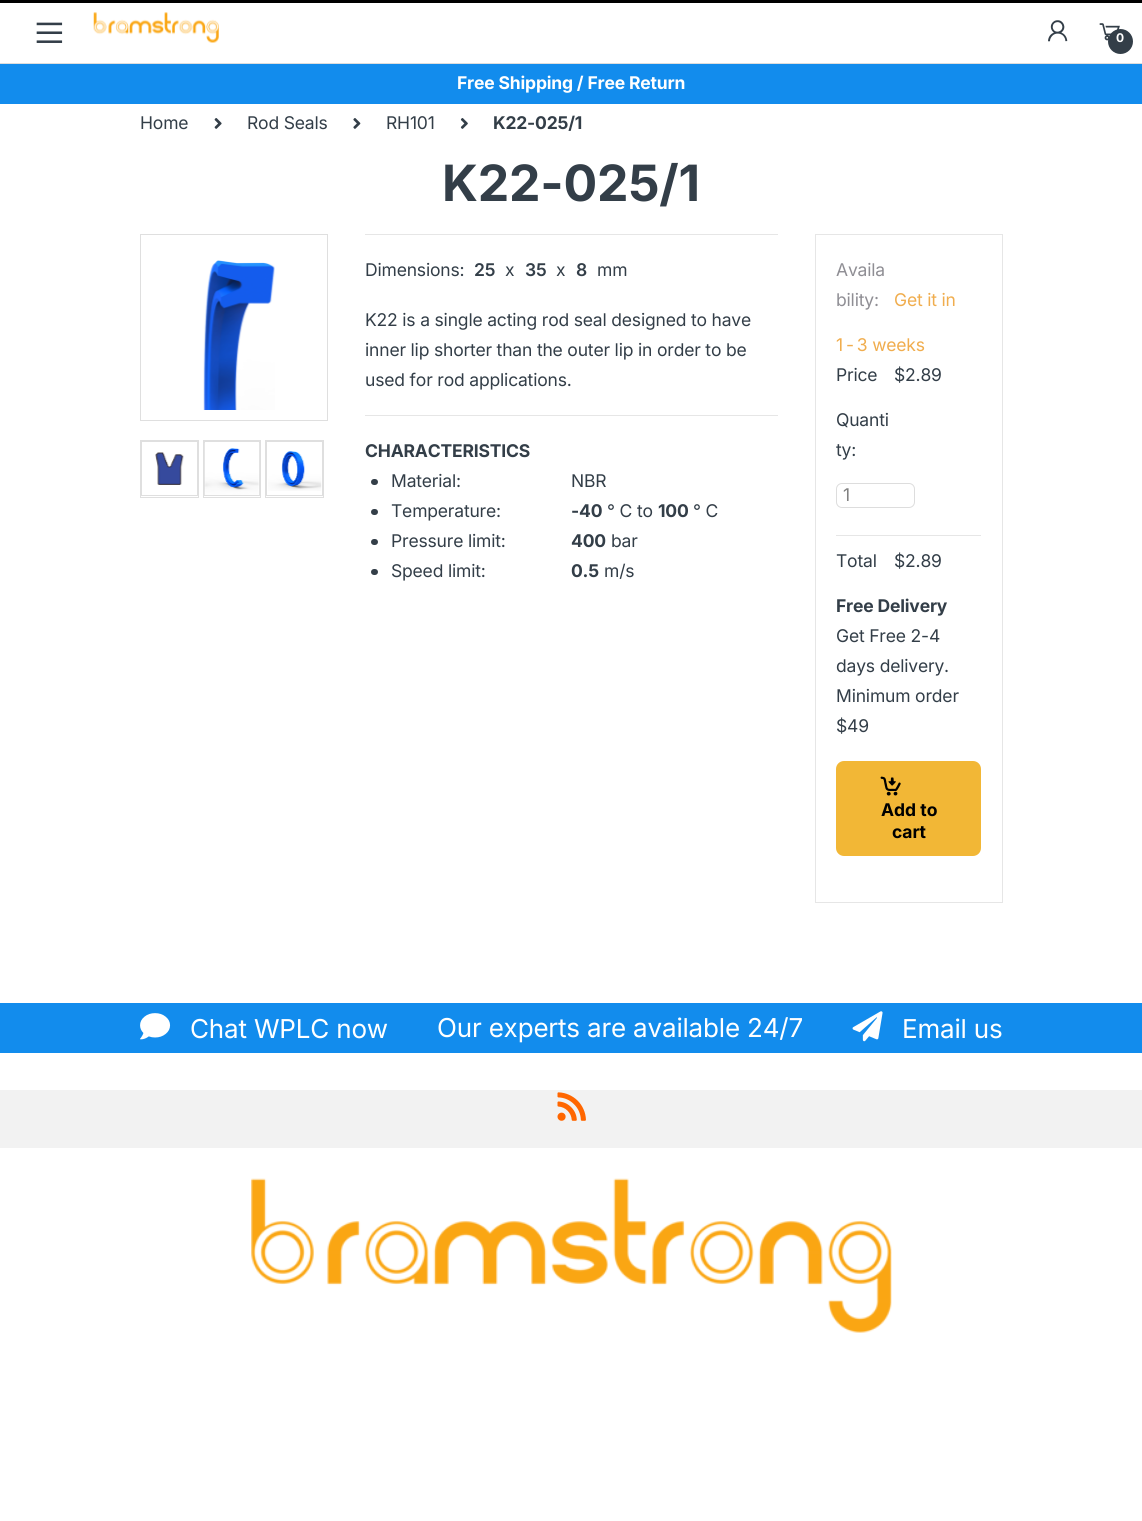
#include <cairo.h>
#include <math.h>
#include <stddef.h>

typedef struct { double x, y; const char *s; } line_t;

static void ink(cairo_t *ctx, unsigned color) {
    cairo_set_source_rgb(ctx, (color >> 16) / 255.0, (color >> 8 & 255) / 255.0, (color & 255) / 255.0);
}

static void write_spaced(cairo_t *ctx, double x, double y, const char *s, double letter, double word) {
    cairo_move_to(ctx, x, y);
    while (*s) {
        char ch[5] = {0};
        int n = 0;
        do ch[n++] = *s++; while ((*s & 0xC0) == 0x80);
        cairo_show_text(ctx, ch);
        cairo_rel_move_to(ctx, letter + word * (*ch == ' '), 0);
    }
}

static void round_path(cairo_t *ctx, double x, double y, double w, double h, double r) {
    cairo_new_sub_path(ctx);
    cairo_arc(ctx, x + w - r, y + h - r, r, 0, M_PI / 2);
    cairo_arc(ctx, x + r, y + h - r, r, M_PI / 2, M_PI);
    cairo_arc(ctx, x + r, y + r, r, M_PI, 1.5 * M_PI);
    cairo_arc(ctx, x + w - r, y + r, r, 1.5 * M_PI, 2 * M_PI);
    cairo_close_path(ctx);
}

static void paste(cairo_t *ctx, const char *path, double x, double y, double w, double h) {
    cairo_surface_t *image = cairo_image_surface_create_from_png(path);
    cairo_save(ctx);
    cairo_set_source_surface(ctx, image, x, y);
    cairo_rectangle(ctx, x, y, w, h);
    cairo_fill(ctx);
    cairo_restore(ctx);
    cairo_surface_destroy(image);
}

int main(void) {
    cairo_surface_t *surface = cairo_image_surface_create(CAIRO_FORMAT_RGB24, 1142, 1521);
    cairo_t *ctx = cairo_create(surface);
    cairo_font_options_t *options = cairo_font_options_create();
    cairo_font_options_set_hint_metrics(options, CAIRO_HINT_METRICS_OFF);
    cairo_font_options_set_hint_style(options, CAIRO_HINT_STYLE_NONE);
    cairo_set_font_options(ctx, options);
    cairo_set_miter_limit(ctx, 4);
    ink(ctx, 0xFFFFFF);
    cairo_paint(ctx);
    ink(ctx, 0x000000);
    cairo_rectangle(ctx, 0, 0, 1142, 3);
    cairo_fill(ctx);
    ink(ctx, 0xDDDDDD);
    cairo_rectangle(ctx, 0, 63, 1142, 1);
    cairo_fill(ctx);
    paste(ctx, "media/1.png", 36, 22, 27, 21);
    paste(ctx, "media/2.png", 93, 12, 126, 31);
    paste(ctx, "media/3.png", 1048, 20, 20, 22);
    paste(ctx, "media/4.png", 1099, 23, 21, 18);
    ink(ctx, 0x333E48);
    cairo_arc(ctx, 1120.5, 41.5, 12.5, 0, 2 * M_PI);
    cairo_fill(ctx);
    cairo_select_font_face(ctx, "Inter", CAIRO_FONT_SLANT_NORMAL, CAIRO_FONT_WEIGHT_BOLD);
    cairo_set_font_size(ctx, 12);
    ink(ctx, 0xFFFFFF);
    write_spaced(ctx, 1116, 42, "0", -0.18, 0);
    ink(ctx, 0x128CED);
    cairo_rectangle(ctx, 0, 64, 1142, 40);
    cairo_fill(ctx);
    cairo_set_font_size(ctx, 17.5);
    ink(ctx, 0xFFFFFF);
    write_spaced(ctx, 457, 89, "Free Shipping / Free Return", -0.18, 0);
    cairo_select_font_face(ctx, "Inter", CAIRO_FONT_SLANT_NORMAL, CAIRO_FONT_WEIGHT_NORMAL);
    ink(ctx, 0x333E48);
    write_spaced(ctx, 140, 129, "Home", -0.18, 0);
    paste(ctx, "media/5.png", 214, 118, 8, 11);
    write_spaced(ctx, 247, 129, "Rod Seals", -0.18, 0);
    paste(ctx, "media/6.png", 353, 118, 8, 11);
    write_spaced(ctx, 386, 129, "RH101", -0.18, 0);
    paste(ctx, "media/7.png", 460, 118, 8, 11);
    cairo_select_font_face(ctx, "Inter", CAIRO_FONT_SLANT_NORMAL, CAIRO_FONT_WEIGHT_BOLD);
    write_spaced(ctx, 493, 129, "K22-025/1", -0.18, 0);
    cairo_set_font_size(ctx, 50);
    write_spaced(ctx, 442, 201, "K22-025/1", -0.18, 0);
    cairo_rectangle(ctx, 140.5, 234.5, 187, 186);
    ink(ctx, 0xDFDFDF);
    cairo_set_line_width(ctx, 1);
    cairo_stroke(ctx);
    paste(ctx, "media/8.png", 203, 260, 72, 150);
    cairo_rectangle(ctx, 140.5, 440.5, 58, 57);
    cairo_stroke(ctx);
    cairo_rectangle(ctx, 141.5, 441.5, 56, 54);
    cairo_stroke(ctx);
    paste(ctx, "media/9.png", 155, 452, 29, 33);
    cairo_rectangle(ctx, 203.5, 440.5, 57, 57);
    cairo_stroke(ctx);
    cairo_rectangle(ctx, 204.5, 441.5, 55, 54);
    cairo_stroke(ctx);
    paste(ctx, "media/10.png", 204, 443, 56, 52);
    cairo_rectangle(ctx, 265.5, 440.5, 58, 57);
    cairo_stroke(ctx);
    cairo_rectangle(ctx, 266.5, 441.5, 56, 54);
    cairo_stroke(ctx);
    paste(ctx, "media/11.png", 268, 451, 54, 40);
    ink(ctx, 0xE6E6E6);
    cairo_rectangle(ctx, 365, 234, 413, 1);
    cairo_fill(ctx);
    cairo_select_font_face(ctx, "Inter", CAIRO_FONT_SLANT_NORMAL, CAIRO_FONT_WEIGHT_NORMAL);
    cairo_set_font_size(ctx, 17.5);
    ink(ctx, 0x333E48);
    write_spaced(ctx, 365, 276, "Dimensions:", -0.18, 0);
    cairo_select_font_face(ctx, "Inter SemiBold", CAIRO_FONT_SLANT_NORMAL, CAIRO_FONT_WEIGHT_NORMAL);
    write_spaced(ctx, 474, 276, "25", -0.18, 0);
    cairo_select_font_face(ctx, "Inter", CAIRO_FONT_SLANT_NORMAL, CAIRO_FONT_WEIGHT_NORMAL);
    write_spaced(ctx, 505, 276, "x", -0.18, 0);
    cairo_select_font_face(ctx, "Inter SemiBold", CAIRO_FONT_SLANT_NORMAL, CAIRO_FONT_WEIGHT_NORMAL);
    write_spaced(ctx, 525, 276, "35", -0.18, 0);
    cairo_select_font_face(ctx, "Inter", CAIRO_FONT_SLANT_NORMAL, CAIRO_FONT_WEIGHT_NORMAL);
    write_spaced(ctx, 556, 276, "x", -0.18, 0);
    cairo_select_font_face(ctx, "Inter SemiBold", CAIRO_FONT_SLANT_NORMAL, CAIRO_FONT_WEIGHT_NORMAL);
    write_spaced(ctx, 576, 276, "8", -0.18, 0);
    cairo_select_font_face(ctx, "Inter", CAIRO_FONT_SLANT_NORMAL, CAIRO_FONT_WEIGHT_NORMAL);
    {
        static const line_t items[] = {
            {597, 276, "mm"},
            {365, 326, "K22 is a single acting rod seal designed to have"},
            {365, 356, "inner lip shorter than the outer lip in order to be"},
            {365, 386, "used for rod applications."},
        };
        for (size_t i = 0; i < sizeof items / sizeof *items; i++) {
            write_spaced(ctx, items[i].x, items[i].y, items[i].s, -0.18, 0);
        }
    }
    ink(ctx, 0xE6E6E6);
    cairo_rectangle(ctx, 365, 415, 413, 1);
    cairo_fill(ctx);
    cairo_select_font_face(ctx, "Inter", CAIRO_FONT_SLANT_NORMAL, CAIRO_FONT_WEIGHT_BOLD);
    ink(ctx, 0x333E48);
    write_spaced(ctx, 365, 457, "CHARACTERISTICS", -0.18, 0);
    round_path(ctx, 371, 479, 7, 6, 3);
    cairo_fill(ctx);
    cairo_select_font_face(ctx, "Inter", CAIRO_FONT_SLANT_NORMAL, CAIRO_FONT_WEIGHT_NORMAL);
    write_spaced(ctx, 391, 487, "Material:", -0.18, 0);
    write_spaced(ctx, 571, 487, "NBR", -0.18, 0);
    round_path(ctx, 371, 509, 7, 6, 3);
    cairo_fill(ctx);
    write_spaced(ctx, 391, 517, "Temperature:", -0.18, 0);
    cairo_select_font_face(ctx, "Inter", CAIRO_FONT_SLANT_NORMAL, CAIRO_FONT_WEIGHT_BOLD);
    write_spaced(ctx, 571, 517, "-40", -0.18, 0);
    cairo_select_font_face(ctx, "Inter", CAIRO_FONT_SLANT_NORMAL, CAIRO_FONT_WEIGHT_NORMAL);
    write_spaced(ctx, 607, 517, "° C to", -0.18, 0);
    cairo_select_font_face(ctx, "Inter", CAIRO_FONT_SLANT_NORMAL, CAIRO_FONT_WEIGHT_BOLD);
    write_spaced(ctx, 658, 517, "100", -0.18, 0);
    cairo_select_font_face(ctx, "Inter", CAIRO_FONT_SLANT_NORMAL, CAIRO_FONT_WEIGHT_NORMAL);
    write_spaced(ctx, 693, 517, "° C", -0.18, 0);
    round_path(ctx, 371, 539, 7, 6, 3);
    cairo_fill(ctx);
    write_spaced(ctx, 391, 547, "Pressure limit:", -0.18, 0);
    cairo_select_font_face(ctx, "Inter", CAIRO_FONT_SLANT_NORMAL, CAIRO_FONT_WEIGHT_BOLD);
    write_spaced(ctx, 571, 547, "400", -0.18, 0);
    cairo_select_font_face(ctx, "Inter", CAIRO_FONT_SLANT_NORMAL, CAIRO_FONT_WEIGHT_NORMAL);
    write_spaced(ctx, 611, 547, "bar", -0.18, 0);
    round_path(ctx, 371, 569, 7, 6, 3);
    cairo_fill(ctx);
    write_spaced(ctx, 391, 577, "Speed limit:", -0.18, 0);
    cairo_select_font_face(ctx, "Inter", CAIRO_FONT_SLANT_NORMAL, CAIRO_FONT_WEIGHT_BOLD);
    write_spaced(ctx, 571, 577, "0.5", -0.18, 0);
    cairo_select_font_face(ctx, "Inter", CAIRO_FONT_SLANT_NORMAL, CAIRO_FONT_WEIGHT_NORMAL);
    write_spaced(ctx, 604, 577, "m/s", -0.18, 0);
    cairo_rectangle(ctx, 815.5, 234.5, 187, 668);
    ink(ctx, 0xE6E6E6);
    cairo_stroke(ctx);
    ink(ctx, 0x8F8E94);
    write_spaced(ctx, 836, 276, "Availa", -0.18, 0);
    write_spaced(ctx, 836, 306, "bility:", -0.18, 0);
    ink(ctx, 0xF0AD4E);
    write_spaced(ctx, 894, 306, "Get it in", -0.18, 0);
    write_spaced(ctx, 836, 351, "1 - 3 weeks", -0.18, 0);
    ink(ctx, 0x333E48);
    {
        static const line_t items[] = {
            {836, 381, "Price"},
            {894, 381, "$2.89"},
            {836, 426, "Quanti"},
            {836, 456, "ty:"},
        };
        for (size_t i = 0; i < sizeof items / sizeof *items; i++) {
            write_spaced(ctx, items[i].x, items[i].y, items[i].s, -0.18, 0);
        }
    }
    round_path(ctx, 836.5, 483.5, 78, 24, 5.5);
    ink(ctx, 0xDDDDDD);
    cairo_stroke(ctx);
    ink(ctx, 0x818181);
    cairo_move_to(ctx, 843, 501);
    cairo_show_text(ctx, "1");
    ink(ctx, 0xE6E6E6);
    cairo_rectangle(ctx, 836, 535, 145, 1);
    cairo_fill(ctx);
    ink(ctx, 0x333E48);
    write_spaced(ctx, 836, 567, "Total", -0.18, 0);
    write_spaced(ctx, 894, 567, "$2.89", -0.18, 0);
    cairo_select_font_face(ctx, "Inter", CAIRO_FONT_SLANT_NORMAL, CAIRO_FONT_WEIGHT_BOLD);
    write_spaced(ctx, 836, 612, "Free Delivery", -0.18, 0);
    cairo_select_font_face(ctx, "Inter", CAIRO_FONT_SLANT_NORMAL, CAIRO_FONT_WEIGHT_NORMAL);
    {
        static const line_t items[] = {
            {836, 642, "Get Free 2-4"},
            {836, 672, "days delivery."},
            {836, 702, "Minimum order"},
            {836, 732, "$49"},
        };
        for (size_t i = 0; i < sizeof items / sizeof *items; i++) {
            write_spaced(ctx, items[i].x, items[i].y, items[i].s, -0.18, 0);
        }
    }
    ink(ctx, 0xF2B736);
    round_path(ctx, 836, 761, 145, 95, 8);
    cairo_fill(ctx);
    paste(ctx, "media/12.png", 880, 776, 21, 20);
    cairo_select_font_face(ctx, "Inter", CAIRO_FONT_SLANT_NORMAL, CAIRO_FONT_WEIGHT_BOLD);
    ink(ctx, 0x000000);
    cairo_move_to(ctx, 881, 816);
    cairo_show_text(ctx, "Add to");
    cairo_move_to(ctx, 892, 838);
    cairo_show_text(ctx, "cart");
    ink(ctx, 0x128CED);
    cairo_rectangle(ctx, 0, 1003, 1142, 50);
    cairo_fill(ctx);
    paste(ctx, "media/13.png", 140, 1013, 31, 27);
    cairo_select_font_face(ctx, "Inter", CAIRO_FONT_SLANT_NORMAL, CAIRO_FONT_WEIGHT_NORMAL);
    cairo_set_font_size(ctx, 26);
    ink(ctx, 0xFFFFFF);
    write_spaced(ctx, 190, 1038, "Chat WPLC now", -0.18, 0);
    write_spaced(ctx, 437, 1037, "Our experts are available 24/7", -0.18, 0);
    paste(ctx, "media/14.png", 852, 1011, 31, 31);
    write_spaced(ctx, 902, 1038, "Email us", -0.18, 0);
    ink(ctx, 0xF2F2F2);
    cairo_rectangle(ctx, 0, 1090, 1142, 58);
    cairo_fill(ctx);
    paste(ctx, "media/15.png", 557, 1092, 29, 29);
    paste(ctx, "media/16.png", 251, 1178, 641, 155);
    cairo_surface_write_to_png(surface, "image.png");
    cairo_font_options_destroy(options);
    cairo_destroy(ctx);
    cairo_surface_destroy(surface);
    return 0;
}
